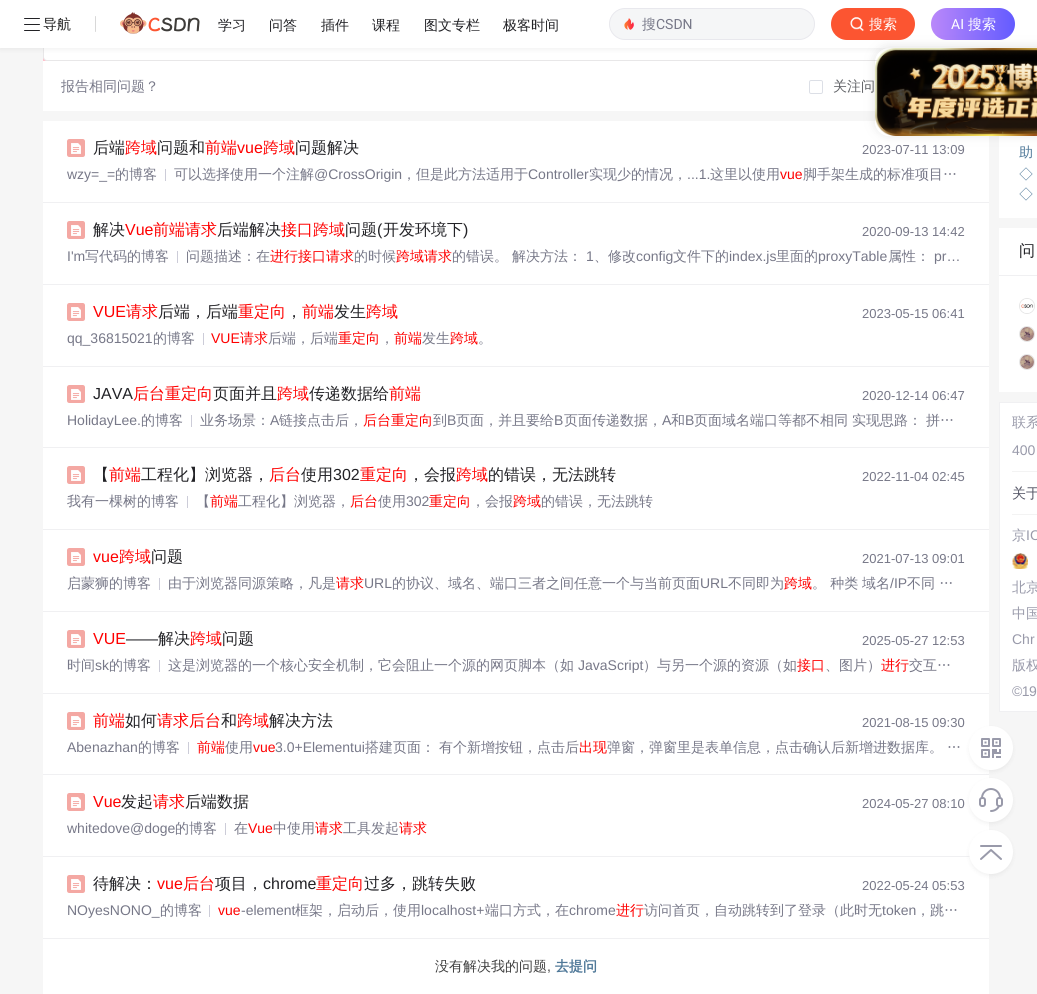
#include <cairo.h>
#include <math.h>
#include <stddef.h>

typedef struct { double x, y; const char *s; } line_t;
typedef struct { double x, y, w, h; unsigned color; } box_t;

static void ink(cairo_t *ctx, unsigned color) {
    cairo_set_source_rgb(ctx, (color >> 16) / 255.0, (color >> 8 & 255) / 255.0, (color & 255) / 255.0);
}

static void write_spaced(cairo_t *ctx, double x, double y, const char *s, double letter, double word) {
    cairo_move_to(ctx, x, y);
    while (*s) {
        char ch[5] = {0};
        int n = 0;
        do ch[n++] = *s++; while ((*s & 0xC0) == 0x80);
        cairo_show_text(ctx, ch);
        cairo_rel_move_to(ctx, letter + word * (*ch == ' '), 0);
    }
}

static void round_path(cairo_t *ctx, double x, double y, double w, double h, double r) {
    cairo_new_sub_path(ctx);
    cairo_arc(ctx, x + w - r, y + h - r, r, 0, M_PI / 2);
    cairo_arc(ctx, x + r, y + h - r, r, M_PI / 2, M_PI);
    cairo_arc(ctx, x + r, y + r, r, M_PI, 1.5 * M_PI);
    cairo_arc(ctx, x + w - r, y + r, r, 1.5 * M_PI, 2 * M_PI);
    cairo_close_path(ctx);
}

static void blur_box(cairo_t *ctx, double x, double y, double w, double h, double r, double blur, double alpha) {
    cairo_push_group_with_content(ctx, CAIRO_CONTENT_ALPHA);
    cairo_set_operator(ctx, CAIRO_OPERATOR_SOURCE);
    for (int i = 15; i >= -15 && fmin(w, h) + blur * i / 3 > 0; i -= 2) {
        double e = blur * i / 6;
        cairo_set_source_rgba(ctx, 0, 0, 0, alpha * erfc((i - 1) / 8.5) / 2);
        round_path(ctx, x - e, y - e, w + 2 * e, h + 2 * e, fmax(0, fmin(r + e + blur * .6, fmin(w, h) / 2 + e)));
        cairo_fill(ctx);
    }
    cairo_pattern_t *soft = cairo_pop_group(ctx);
    cairo_mask(ctx, soft);
    cairo_pattern_destroy(soft);
}

static void paste(cairo_t *ctx, const char *path, double x, double y, double w, double h) {
    cairo_surface_t *image = cairo_image_surface_create_from_png(path);
    cairo_save(ctx);
    cairo_set_source_surface(ctx, image, x, y);
    cairo_rectangle(ctx, x, y, w, h);
    cairo_fill(ctx);
    cairo_restore(ctx);
    cairo_surface_destroy(image);
}

int main(void) {
    cairo_surface_t *surface = cairo_image_surface_create(CAIRO_FORMAT_RGB24, 1037, 994);
    cairo_t *ctx = cairo_create(surface);
    cairo_font_options_t *options = cairo_font_options_create();
    cairo_font_options_set_hint_metrics(options, CAIRO_HINT_METRICS_OFF);
    cairo_font_options_set_hint_style(options, CAIRO_HINT_STYLE_NONE);
    cairo_set_font_options(ctx, options);
    cairo_set_miter_limit(ctx, 4);
    cairo_pattern_t *gradient;
    ink(ctx, 0xF6F6F6);
    cairo_paint(ctx);
    ink(ctx, 0xFFC0CB);
    cairo_rectangle(ctx, 43, 57, 4, 4);
    cairo_fill(ctx);
    ink(ctx, 0xFFFFFF);
    round_path(ctx, 43.5, -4.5, 945, 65, 3.5);
    cairo_fill_preserve(ctx);
    ink(ctx, 0xE8E7E8);
    cairo_set_line_width(ctx, 1);
    cairo_stroke(ctx);
    ink(ctx, 0x000000);
    blur_box(ctx, 0, 2, 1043, 48, 0, 2, 0.05);
    ink(ctx, 0xFFFFFF);
    cairo_rectangle(ctx, 0, 0, 1037, 48);
    cairo_fill(ctx);
    paste(ctx, "media/1.png", 24, 18, 16, 13);
    cairo_select_font_face(ctx, "WenQuanYi Zen Hei Medium", CAIRO_FONT_SLANT_NORMAL, CAIRO_FONT_WEIGHT_NORMAL);
    cairo_set_font_size(ctx, 14);
    ink(ctx, 0x1A1A1A);
    cairo_move_to(ctx, 43, 29);
    cairo_show_text(ctx, "导航");
    ink(ctx, 0xD8D8D8);
    round_path(ctx, 95, 16, 1, 16, 0.5);
    cairo_fill(ctx);
    paste(ctx, "media/2.png", 120, 12, 80, 22);
    ink(ctx, 0x222226);
    {
        static const line_t items[] = {
            {218, 30, "学习"},
            {269, 30, "问答"},
            {321, 30, "插件"},
            {372, 30, "课程"},
            {424, 30, "图文专栏"},
            {503, 30, "极客时间"},
        };
        for (size_t i = 0; i < sizeof items / sizeof *items; i++) {
            cairo_move_to(ctx, items[i].x, items[i].y);
            cairo_show_text(ctx, items[i].s);
        }
    }
    ink(ctx, 0xF5F6F7);
    round_path(ctx, 609.5, 8.5, 205, 31, 15.5);
    cairo_fill_preserve(ctx);
    ink(ctx, 0xE8E8ED);
    cairo_stroke(ctx);
    paste(ctx, "media/3.png", 624, 18, 10, 12);
    ink(ctx, 0x777888);
    cairo_move_to(ctx, 642, 29);
    cairo_show_text(ctx, "搜");
    cairo_select_font_face(ctx, "Roboto", CAIRO_FONT_SLANT_NORMAL, CAIRO_FONT_WEIGHT_NORMAL);
    cairo_move_to(ctx, 656, 29);
    cairo_show_text(ctx, "CSDN");
    ink(ctx, 0xFC5531);
    round_path(ctx, 831, 8, 84, 32, 16);
    cairo_fill(ctx);
    paste(ctx, "media/4.png", 850, 17, 14, 15);
    cairo_select_font_face(ctx, "WenQuanYi Zen Hei Medium", CAIRO_FONT_SLANT_NORMAL, CAIRO_FONT_WEIGHT_NORMAL);
    ink(ctx, 0xFFFFFF);
    cairo_move_to(ctx, 869, 29);
    cairo_show_text(ctx, "搜索");
    gradient = cairo_pattern_create_linear(931, 24, 1015, 24);
    cairo_pattern_add_color_stop_rgba(gradient, 0, 0.729, 0.533, 0.98, 1);
    cairo_pattern_add_color_stop_rgba(gradient, 1, 0.388, 0.357, 1, 1);
    cairo_set_source(ctx, gradient);
    cairo_pattern_destroy(gradient);
    round_path(ctx, 931, 8, 84, 32, 16);
    cairo_fill(ctx);
    cairo_select_font_face(ctx, "Roboto", CAIRO_FONT_SLANT_NORMAL, CAIRO_FONT_WEIGHT_NORMAL);
    ink(ctx, 0xFFFFFF);
    cairo_move_to(ctx, 951, 29);
    cairo_show_text(ctx, "AI");
    cairo_select_font_face(ctx, "WenQuanYi Zen Hei Medium", CAIRO_FONT_SLANT_NORMAL, CAIRO_FONT_WEIGHT_NORMAL);
    cairo_move_to(ctx, 968, 29);
    cairo_show_text(ctx, "搜索");
    {
        static const box_t items[] = {
            {43, 61, 835, 50, 0xFFFFFF},
            {43, 121, 946, 873, 0xFFFFFF},
            {999, 136, 38, 82, 0xFFFFFF},
        };
        for (size_t i = 0; i < sizeof items / sizeof *items; i++) {
            ink(ctx, items[i].color);
            cairo_rectangle(ctx, items[i].x, items[i].y, items[i].w, items[i].h);
            cairo_fill(ctx);
        }
    }
    cairo_save(ctx);
    cairo_set_fill_rule(ctx, CAIRO_FILL_RULE_EVEN_ODD);
    cairo_new_path(ctx);
    cairo_move_to(ctx, 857, 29);
    cairo_line_to(ctx, 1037, 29);
    cairo_line_to(ctx, 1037, 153);
    cairo_line_to(ctx, 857, 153);
    cairo_close_path(ctx);
    cairo_move_to(ctx, 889, 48);
    cairo_line_to(ctx, 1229, 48);
    cairo_curve_to(ctx, 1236.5, 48, 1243, 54.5, 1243, 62);
    cairo_line_to(ctx, 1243, 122);
    cairo_curve_to(ctx, 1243, 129.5, 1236.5, 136, 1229, 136);
    cairo_line_to(ctx, 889, 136);
    cairo_curve_to(ctx, 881.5, 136, 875, 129.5, 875, 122);
    cairo_line_to(ctx, 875, 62);
    cairo_curve_to(ctx, 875, 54.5, 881.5, 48, 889, 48);
    cairo_close_path(ctx);
    cairo_clip(ctx);
    ink(ctx, 0x676767);
    blur_box(ctx, 875, 47, 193, 88, 14, 5.5, 0.19);
    cairo_restore(ctx);
    paste(ctx, "media/5.png", 875, 48, 162, 88);
    ink(ctx, 0x777888);
    cairo_move_to(ctx, 61, 91);
    cairo_show_text(ctx, "报告相同问题？");
    round_path(ctx, 809.5, 80.5, 13, 13, 1.5);
    ink(ctx, 0xDCDFE6);
    cairo_stroke(ctx);
    ink(ctx, 0x606266);
    cairo_move_to(ctx, 833, 91);
    cairo_show_text(ctx, "关注问");
    ink(ctx, 0xF0F0F2);
    cairo_rectangle(ctx, 43, 202, 946, 1);
    cairo_fill(ctx);
    paste(ctx, "media/6.png", 67, 139, 18, 18);
    cairo_set_font_size(ctx, 16);
    ink(ctx, 0x222226);
    cairo_move_to(ctx, 93, 153);
    cairo_show_text(ctx, "后端");
    ink(ctx, 0xFF0000);
    cairo_move_to(ctx, 125, 153);
    cairo_show_text(ctx, "跨域");
    ink(ctx, 0x222226);
    cairo_move_to(ctx, 157, 153);
    cairo_show_text(ctx, "问题和");
    ink(ctx, 0xFF0000);
    cairo_move_to(ctx, 205, 153);
    cairo_show_text(ctx, "前端");
    cairo_select_font_face(ctx, "Liberation Sans", CAIRO_FONT_SLANT_NORMAL, CAIRO_FONT_WEIGHT_NORMAL);
    cairo_move_to(ctx, 237, 153);
    cairo_show_text(ctx, "vue");
    cairo_select_font_face(ctx, "WenQuanYi Zen Hei Medium", CAIRO_FONT_SLANT_NORMAL, CAIRO_FONT_WEIGHT_NORMAL);
    cairo_move_to(ctx, 263, 153);
    cairo_show_text(ctx, "跨域");
    ink(ctx, 0x222226);
    cairo_move_to(ctx, 295, 153);
    cairo_show_text(ctx, "问题解决");
    cairo_select_font_face(ctx, "Liberation Sans", CAIRO_FONT_SLANT_NORMAL, CAIRO_FONT_WEIGHT_NORMAL);
    cairo_set_font_size(ctx, 13);
    ink(ctx, 0x777888);
    cairo_move_to(ctx, 862, 154);
    cairo_show_text(ctx, "2023-07-11 13:09");
    cairo_set_font_size(ctx, 14);
    cairo_move_to(ctx, 67, 179);
    cairo_show_text(ctx, "wzy=_=");
    cairo_select_font_face(ctx, "WenQuanYi Zen Hei Medium", CAIRO_FONT_SLANT_NORMAL, CAIRO_FONT_WEIGHT_NORMAL);
    cairo_move_to(ctx, 115, 179);
    cairo_show_text(ctx, "的博客");
    ink(ctx, 0xCCCCD8);
    cairo_rectangle(ctx, 165, 169, 1, 12);
    cairo_fill(ctx);
    ink(ctx, 0x777888);
    cairo_move_to(ctx, 174, 179);
    cairo_show_text(ctx, "可以选择使用一个注解");
    cairo_select_font_face(ctx, "Liberation Sans", CAIRO_FONT_SLANT_NORMAL, CAIRO_FONT_WEIGHT_NORMAL);
    cairo_move_to(ctx, 314, 179);
    cairo_show_text(ctx, "@CrossOrigin");
    cairo_select_font_face(ctx, "WenQuanYi Zen Hei Medium", CAIRO_FONT_SLANT_NORMAL, CAIRO_FONT_WEIGHT_NORMAL);
    cairo_move_to(ctx, 402, 179);
    cairo_show_text(ctx, "，但是此方法适用于");
    cairo_select_font_face(ctx, "Liberation Sans", CAIRO_FONT_SLANT_NORMAL, CAIRO_FONT_WEIGHT_NORMAL);
    cairo_move_to(ctx, 528, 179);
    cairo_show_text(ctx, "Controller");
    cairo_select_font_face(ctx, "WenQuanYi Zen Hei Medium", CAIRO_FONT_SLANT_NORMAL, CAIRO_FONT_WEIGHT_NORMAL);
    cairo_move_to(ctx, 589, 179);
    cairo_show_text(ctx, "实现少的情况，");
    cairo_select_font_face(ctx, "Liberation Sans", CAIRO_FONT_SLANT_NORMAL, CAIRO_FONT_WEIGHT_NORMAL);
    cairo_move_to(ctx, 687, 179);
    cairo_show_text(ctx, "...1.");
    cairo_select_font_face(ctx, "WenQuanYi Zen Hei Medium", CAIRO_FONT_SLANT_NORMAL, CAIRO_FONT_WEIGHT_NORMAL);
    cairo_move_to(ctx, 710, 179);
    cairo_show_text(ctx, "这里以使用");
    cairo_select_font_face(ctx, "Liberation Sans", CAIRO_FONT_SLANT_NORMAL, CAIRO_FONT_WEIGHT_NORMAL);
    ink(ctx, 0xFF0000);
    cairo_move_to(ctx, 780, 179);
    cairo_show_text(ctx, "vue");
    cairo_select_font_face(ctx, "WenQuanYi Zen Hei Medium", CAIRO_FONT_SLANT_NORMAL, CAIRO_FONT_WEIGHT_NORMAL);
    ink(ctx, 0x777888);
    cairo_move_to(ctx, 803, 179);
    cairo_show_text(ctx, "脚手架生成的标准项目…");
    ink(ctx, 0xF0F0F2);
    cairo_rectangle(ctx, 43, 284, 946, 1);
    cairo_fill(ctx);
    paste(ctx, "media/6.png", 67, 221, 18, 18);
    cairo_set_font_size(ctx, 16);
    ink(ctx, 0x222226);
    cairo_move_to(ctx, 93, 235);
    cairo_show_text(ctx, "解决");
    cairo_select_font_face(ctx, "Liberation Sans", CAIRO_FONT_SLANT_NORMAL, CAIRO_FONT_WEIGHT_NORMAL);
    ink(ctx, 0xFF0000);
    cairo_move_to(ctx, 125, 235);
    cairo_show_text(ctx, "Vue");
    cairo_select_font_face(ctx, "WenQuanYi Zen Hei Medium", CAIRO_FONT_SLANT_NORMAL, CAIRO_FONT_WEIGHT_NORMAL);
    cairo_move_to(ctx, 153, 235);
    cairo_show_text(ctx, "前端请求");
    ink(ctx, 0x222226);
    cairo_move_to(ctx, 217, 235);
    cairo_show_text(ctx, "后端解决");
    ink(ctx, 0xFF0000);
    cairo_move_to(ctx, 281, 235);
    cairo_show_text(ctx, "接口跨域");
    ink(ctx, 0x222226);
    cairo_move_to(ctx, 345, 235);
    cairo_show_text(ctx, "问题");
    cairo_select_font_face(ctx, "Liberation Sans", CAIRO_FONT_SLANT_NORMAL, CAIRO_FONT_WEIGHT_NORMAL);
    cairo_move_to(ctx, 377, 235);
    cairo_show_text(ctx, "(");
    cairo_select_font_face(ctx, "WenQuanYi Zen Hei Medium", CAIRO_FONT_SLANT_NORMAL, CAIRO_FONT_WEIGHT_NORMAL);
    cairo_move_to(ctx, 383, 235);
    cairo_show_text(ctx, "开发环境下");
    cairo_select_font_face(ctx, "Liberation Sans", CAIRO_FONT_SLANT_NORMAL, CAIRO_FONT_WEIGHT_NORMAL);
    cairo_move_to(ctx, 463, 235);
    cairo_show_text(ctx, ")");
    cairo_set_font_size(ctx, 13);
    ink(ctx, 0x777888);
    cairo_move_to(ctx, 862, 236);
    cairo_show_text(ctx, "2020-09-13 14:42");
    cairo_set_font_size(ctx, 14);
    cairo_move_to(ctx, 67, 261);
    cairo_show_text(ctx, "I'm");
    cairo_select_font_face(ctx, "WenQuanYi Zen Hei Medium", CAIRO_FONT_SLANT_NORMAL, CAIRO_FONT_WEIGHT_NORMAL);
    cairo_move_to(ctx, 85, 261);
    cairo_show_text(ctx, "写代码的博客");
    ink(ctx, 0xCCCCD8);
    cairo_rectangle(ctx, 177, 251, 1, 12);
    cairo_fill(ctx);
    ink(ctx, 0x777888);
    cairo_move_to(ctx, 186, 261);
    cairo_show_text(ctx, "问题描述：在");
    ink(ctx, 0xFF0000);
    cairo_move_to(ctx, 270, 261);
    cairo_show_text(ctx, "进行接口请求");
    ink(ctx, 0x777888);
    cairo_move_to(ctx, 354, 261);
    cairo_show_text(ctx, "的时候");
    ink(ctx, 0xFF0000);
    cairo_move_to(ctx, 396, 261);
    cairo_show_text(ctx, "跨域请求");
    ink(ctx, 0x777888);
    cairo_move_to(ctx, 452, 261);
    cairo_show_text(ctx, "的错误。");
    cairo_move_to(ctx, 512, 261);
    cairo_show_text(ctx, "解决方法：");
    cairo_select_font_face(ctx, "Liberation Sans", CAIRO_FONT_SLANT_NORMAL, CAIRO_FONT_WEIGHT_NORMAL);
    cairo_move_to(ctx, 586, 261);
    cairo_show_text(ctx, "1");
    cairo_select_font_face(ctx, "WenQuanYi Zen Hei Medium", CAIRO_FONT_SLANT_NORMAL, CAIRO_FONT_WEIGHT_NORMAL);
    cairo_move_to(ctx, 594, 261);
    cairo_show_text(ctx, "、修改");
    cairo_select_font_face(ctx, "Liberation Sans", CAIRO_FONT_SLANT_NORMAL, CAIRO_FONT_WEIGHT_NORMAL);
    cairo_move_to(ctx, 636, 261);
    cairo_show_text(ctx, "config");
    cairo_select_font_face(ctx, "WenQuanYi Zen Hei Medium", CAIRO_FONT_SLANT_NORMAL, CAIRO_FONT_WEIGHT_NORMAL);
    cairo_move_to(ctx, 673, 261);
    cairo_show_text(ctx, "文件下的");
    cairo_select_font_face(ctx, "Liberation Sans", CAIRO_FONT_SLANT_NORMAL, CAIRO_FONT_WEIGHT_NORMAL);
    cairo_move_to(ctx, 729, 261);
    cairo_show_text(ctx, "index.js");
    cairo_select_font_face(ctx, "WenQuanYi Zen Hei Medium", CAIRO_FONT_SLANT_NORMAL, CAIRO_FONT_WEIGHT_NORMAL);
    cairo_move_to(ctx, 776, 261);
    cairo_show_text(ctx, "里面的");
    cairo_select_font_face(ctx, "Liberation Sans", CAIRO_FONT_SLANT_NORMAL, CAIRO_FONT_WEIGHT_NORMAL);
    cairo_move_to(ctx, 818, 261);
    cairo_show_text(ctx, "proxyTable");
    cairo_select_font_face(ctx, "WenQuanYi Zen Hei Medium", CAIRO_FONT_SLANT_NORMAL, CAIRO_FONT_WEIGHT_NORMAL);
    cairo_move_to(ctx, 888, 261);
    cairo_show_text(ctx, "属性：");
    cairo_select_font_face(ctx, "Liberation Sans", CAIRO_FONT_SLANT_NORMAL, CAIRO_FONT_WEIGHT_NORMAL);
    cairo_move_to(ctx, 934, 261);
    cairo_show_text(ctx, "pr…");
    ink(ctx, 0xF0F0F2);
    cairo_rectangle(ctx, 43, 366, 946, 1);
    cairo_fill(ctx);
    paste(ctx, "media/6.png", 67, 303, 18, 18);
    cairo_set_font_size(ctx, 16);
    ink(ctx, 0xFF0000);
    cairo_move_to(ctx, 93, 317);
    cairo_show_text(ctx, "VUE");
    cairo_select_font_face(ctx, "WenQuanYi Zen Hei Medium", CAIRO_FONT_SLANT_NORMAL, CAIRO_FONT_WEIGHT_NORMAL);
    cairo_move_to(ctx, 126, 317);
    cairo_show_text(ctx, "请求");
    ink(ctx, 0x222226);
    cairo_move_to(ctx, 158, 317);
    cairo_show_text(ctx, "后端，后端");
    ink(ctx, 0xFF0000);
    cairo_move_to(ctx, 238, 317);
    cairo_show_text(ctx, "重定向");
    ink(ctx, 0x222226);
    cairo_move_to(ctx, 286, 317);
    cairo_show_text(ctx, "，");
    ink(ctx, 0xFF0000);
    cairo_move_to(ctx, 302, 317);
    cairo_show_text(ctx, "前端");
    ink(ctx, 0x222226);
    cairo_move_to(ctx, 334, 317);
    cairo_show_text(ctx, "发生");
    ink(ctx, 0xFF0000);
    cairo_move_to(ctx, 366, 317);
    cairo_show_text(ctx, "跨域");
    cairo_select_font_face(ctx, "Liberation Sans", CAIRO_FONT_SLANT_NORMAL, CAIRO_FONT_WEIGHT_NORMAL);
    cairo_set_font_size(ctx, 13);
    ink(ctx, 0x777888);
    cairo_move_to(ctx, 862, 318);
    cairo_show_text(ctx, "2023-05-15 06:41");
    cairo_set_font_size(ctx, 14);
    cairo_move_to(ctx, 67, 343);
    cairo_show_text(ctx, "qq_36815021");
    cairo_select_font_face(ctx, "WenQuanYi Zen Hei Medium", CAIRO_FONT_SLANT_NORMAL, CAIRO_FONT_WEIGHT_NORMAL);
    cairo_move_to(ctx, 153, 343);
    cairo_show_text(ctx, "的博客");
    ink(ctx, 0xCCCCD8);
    cairo_rectangle(ctx, 203, 333, 1, 12);
    cairo_fill(ctx);
    cairo_select_font_face(ctx, "Liberation Sans", CAIRO_FONT_SLANT_NORMAL, CAIRO_FONT_WEIGHT_NORMAL);
    ink(ctx, 0xFF0000);
    cairo_move_to(ctx, 211, 343);
    cairo_show_text(ctx, "VUE");
    cairo_select_font_face(ctx, "WenQuanYi Zen Hei Medium", CAIRO_FONT_SLANT_NORMAL, CAIRO_FONT_WEIGHT_NORMAL);
    cairo_move_to(ctx, 240, 343);
    cairo_show_text(ctx, "请求");
    ink(ctx, 0x777888);
    cairo_move_to(ctx, 268, 343);
    cairo_show_text(ctx, "后端，后端");
    ink(ctx, 0xFF0000);
    cairo_move_to(ctx, 338, 343);
    cairo_show_text(ctx, "重定向");
    ink(ctx, 0x777888);
    cairo_move_to(ctx, 380, 343);
    cairo_show_text(ctx, "，");
    ink(ctx, 0xFF0000);
    cairo_move_to(ctx, 394, 343);
    cairo_show_text(ctx, "前端");
    ink(ctx, 0x777888);
    cairo_move_to(ctx, 422, 343);
    cairo_show_text(ctx, "发生");
    ink(ctx, 0xFF0000);
    cairo_move_to(ctx, 450, 343);
    cairo_show_text(ctx, "跨域");
    ink(ctx, 0x777888);
    cairo_move_to(ctx, 478, 343);
    cairo_show_text(ctx, "。");
    ink(ctx, 0xF0F0F2);
    cairo_rectangle(ctx, 43, 447, 946, 1);
    cairo_fill(ctx);
    paste(ctx, "media/6.png", 67, 385, 18, 18);
    cairo_select_font_face(ctx, "Liberation Sans", CAIRO_FONT_SLANT_NORMAL, CAIRO_FONT_WEIGHT_NORMAL);
    cairo_set_font_size(ctx, 16);
    ink(ctx, 0x222226);
    cairo_move_to(ctx, 93, 399);
    cairo_show_text(ctx, "JAVA");
    cairo_select_font_face(ctx, "WenQuanYi Zen Hei Medium", CAIRO_FONT_SLANT_NORMAL, CAIRO_FONT_WEIGHT_NORMAL);
    ink(ctx, 0xFF0000);
    cairo_move_to(ctx, 133, 399);
    cairo_show_text(ctx, "后台重定向");
    ink(ctx, 0x222226);
    cairo_move_to(ctx, 213, 399);
    cairo_show_text(ctx, "页面并且");
    ink(ctx, 0xFF0000);
    cairo_move_to(ctx, 277, 399);
    cairo_show_text(ctx, "跨域");
    ink(ctx, 0x222226);
    cairo_move_to(ctx, 309, 399);
    cairo_show_text(ctx, "传递数据给");
    ink(ctx, 0xFF0000);
    cairo_move_to(ctx, 389, 399);
    cairo_show_text(ctx, "前端");
    cairo_select_font_face(ctx, "Liberation Sans", CAIRO_FONT_SLANT_NORMAL, CAIRO_FONT_WEIGHT_NORMAL);
    cairo_set_font_size(ctx, 13);
    ink(ctx, 0x777888);
    cairo_move_to(ctx, 862, 400);
    cairo_show_text(ctx, "2020-12-14 06:47");
    cairo_set_font_size(ctx, 14);
    cairo_move_to(ctx, 67, 425);
    cairo_show_text(ctx, "HolidayLee.");
    cairo_select_font_face(ctx, "WenQuanYi Zen Hei Medium", CAIRO_FONT_SLANT_NORMAL, CAIRO_FONT_WEIGHT_NORMAL);
    cairo_move_to(ctx, 141, 425);
    cairo_show_text(ctx, "的博客");
    ink(ctx, 0xCCCCD8);
    cairo_rectangle(ctx, 191, 415, 1, 12);
    cairo_fill(ctx);
    ink(ctx, 0x777888);
    cairo_move_to(ctx, 200, 425);
    cairo_show_text(ctx, "业务场景：");
    cairo_select_font_face(ctx, "Liberation Sans", CAIRO_FONT_SLANT_NORMAL, CAIRO_FONT_WEIGHT_NORMAL);
    cairo_move_to(ctx, 270, 425);
    cairo_show_text(ctx, "A");
    cairo_select_font_face(ctx, "WenQuanYi Zen Hei Medium", CAIRO_FONT_SLANT_NORMAL, CAIRO_FONT_WEIGHT_NORMAL);
    cairo_move_to(ctx, 279, 425);
    cairo_show_text(ctx, "链接点击后，");
    ink(ctx, 0xFF0000);
    cairo_move_to(ctx, 363, 425);
    cairo_show_text(ctx, "后台重定向");
    ink(ctx, 0x777888);
    cairo_move_to(ctx, 433, 425);
    cairo_show_text(ctx, "到");
    cairo_select_font_face(ctx, "Liberation Sans", CAIRO_FONT_SLANT_NORMAL, CAIRO_FONT_WEIGHT_NORMAL);
    cairo_move_to(ctx, 447, 425);
    cairo_show_text(ctx, "B");
    cairo_select_font_face(ctx, "WenQuanYi Zen Hei Medium", CAIRO_FONT_SLANT_NORMAL, CAIRO_FONT_WEIGHT_NORMAL);
    cairo_move_to(ctx, 456, 425);
    cairo_show_text(ctx, "页面，并且要给");
    cairo_select_font_face(ctx, "Liberation Sans", CAIRO_FONT_SLANT_NORMAL, CAIRO_FONT_WEIGHT_NORMAL);
    cairo_move_to(ctx, 554, 425);
    cairo_show_text(ctx, "B");
    cairo_select_font_face(ctx, "WenQuanYi Zen Hei Medium", CAIRO_FONT_SLANT_NORMAL, CAIRO_FONT_WEIGHT_NORMAL);
    cairo_move_to(ctx, 564, 425);
    cairo_show_text(ctx, "页面传递数据，");
    cairo_select_font_face(ctx, "Liberation Sans", CAIRO_FONT_SLANT_NORMAL, CAIRO_FONT_WEIGHT_NORMAL);
    cairo_move_to(ctx, 662, 425);
    cairo_show_text(ctx, "A");
    cairo_select_font_face(ctx, "WenQuanYi Zen Hei Medium", CAIRO_FONT_SLANT_NORMAL, CAIRO_FONT_WEIGHT_NORMAL);
    cairo_move_to(ctx, 671, 425);
    cairo_show_text(ctx, "和");
    cairo_select_font_face(ctx, "Liberation Sans", CAIRO_FONT_SLANT_NORMAL, CAIRO_FONT_WEIGHT_NORMAL);
    cairo_move_to(ctx, 685, 425);
    cairo_show_text(ctx, "B");
    cairo_select_font_face(ctx, "WenQuanYi Zen Hei Medium", CAIRO_FONT_SLANT_NORMAL, CAIRO_FONT_WEIGHT_NORMAL);
    {
        static const line_t items[] = {
            {694, 425, "页面域名端口等都不相同"},
            {852, 425, "实现思路："},
            {926, 425, "拼…"},
        };
        for (size_t i = 0; i < sizeof items / sizeof *items; i++) {
            cairo_move_to(ctx, items[i].x, items[i].y);
            cairo_show_text(ctx, items[i].s);
        }
    }
    ink(ctx, 0xF0F0F2);
    cairo_rectangle(ctx, 43, 529, 946, 1);
    cairo_fill(ctx);
    paste(ctx, "media/6.png", 67, 466, 18, 18);
    cairo_set_font_size(ctx, 16);
    ink(ctx, 0x222226);
    cairo_move_to(ctx, 93, 480);
    cairo_show_text(ctx, "【");
    ink(ctx, 0xFF0000);
    cairo_move_to(ctx, 109, 480);
    cairo_show_text(ctx, "前端");
    ink(ctx, 0x222226);
    cairo_move_to(ctx, 141, 480);
    cairo_show_text(ctx, "工程化】浏览器，");
    ink(ctx, 0xFF0000);
    cairo_move_to(ctx, 269, 480);
    cairo_show_text(ctx, "后台");
    ink(ctx, 0x222226);
    cairo_move_to(ctx, 301, 480);
    cairo_show_text(ctx, "使用");
    cairo_select_font_face(ctx, "Liberation Sans", CAIRO_FONT_SLANT_NORMAL, CAIRO_FONT_WEIGHT_NORMAL);
    cairo_move_to(ctx, 333, 480);
    cairo_show_text(ctx, "302");
    cairo_select_font_face(ctx, "WenQuanYi Zen Hei Medium", CAIRO_FONT_SLANT_NORMAL, CAIRO_FONT_WEIGHT_NORMAL);
    ink(ctx, 0xFF0000);
    cairo_move_to(ctx, 360, 480);
    cairo_show_text(ctx, "重定向");
    ink(ctx, 0x222226);
    cairo_move_to(ctx, 408, 480);
    cairo_show_text(ctx, "，会报");
    ink(ctx, 0xFF0000);
    cairo_move_to(ctx, 456, 480);
    cairo_show_text(ctx, "跨域");
    ink(ctx, 0x222226);
    cairo_move_to(ctx, 488, 480);
    cairo_show_text(ctx, "的错误，无法跳转");
    cairo_select_font_face(ctx, "Liberation Sans", CAIRO_FONT_SLANT_NORMAL, CAIRO_FONT_WEIGHT_NORMAL);
    cairo_set_font_size(ctx, 13);
    ink(ctx, 0x777888);
    cairo_move_to(ctx, 862, 481);
    cairo_show_text(ctx, "2022-11-04 02:45");
    cairo_select_font_face(ctx, "WenQuanYi Zen Hei Medium", CAIRO_FONT_SLANT_NORMAL, CAIRO_FONT_WEIGHT_NORMAL);
    cairo_set_font_size(ctx, 14);
    cairo_move_to(ctx, 67, 506);
    cairo_show_text(ctx, "我有一棵树的博客");
    ink(ctx, 0xCCCCD8);
    cairo_rectangle(ctx, 187, 496, 1, 12);
    cairo_fill(ctx);
    ink(ctx, 0x777888);
    cairo_move_to(ctx, 196, 506);
    cairo_show_text(ctx, "【");
    ink(ctx, 0xFF0000);
    cairo_move_to(ctx, 210, 506);
    cairo_show_text(ctx, "前端");
    ink(ctx, 0x777888);
    cairo_move_to(ctx, 238, 506);
    cairo_show_text(ctx, "工程化】浏览器，");
    ink(ctx, 0xFF0000);
    cairo_move_to(ctx, 350, 506);
    cairo_show_text(ctx, "后台");
    ink(ctx, 0x777888);
    cairo_move_to(ctx, 378, 506);
    cairo_show_text(ctx, "使用");
    cairo_select_font_face(ctx, "Liberation Sans", CAIRO_FONT_SLANT_NORMAL, CAIRO_FONT_WEIGHT_NORMAL);
    cairo_move_to(ctx, 406, 506);
    cairo_show_text(ctx, "302");
    cairo_select_font_face(ctx, "WenQuanYi Zen Hei Medium", CAIRO_FONT_SLANT_NORMAL, CAIRO_FONT_WEIGHT_NORMAL);
    ink(ctx, 0xFF0000);
    cairo_move_to(ctx, 429, 506);
    cairo_show_text(ctx, "重定向");
    ink(ctx, 0x777888);
    cairo_move_to(ctx, 471, 506);
    cairo_show_text(ctx, "，会报");
    ink(ctx, 0xFF0000);
    cairo_move_to(ctx, 513, 506);
    cairo_show_text(ctx, "跨域");
    ink(ctx, 0x777888);
    cairo_move_to(ctx, 541, 506);
    cairo_show_text(ctx, "的错误，无法跳转");
    ink(ctx, 0xF0F0F2);
    cairo_rectangle(ctx, 43, 611, 946, 1);
    cairo_fill(ctx);
    paste(ctx, "media/6.png", 67, 548, 18, 18);
    cairo_select_font_face(ctx, "Liberation Sans", CAIRO_FONT_SLANT_NORMAL, CAIRO_FONT_WEIGHT_NORMAL);
    cairo_set_font_size(ctx, 16);
    ink(ctx, 0xFF0000);
    cairo_move_to(ctx, 93, 562);
    cairo_show_text(ctx, "vue");
    cairo_select_font_face(ctx, "WenQuanYi Zen Hei Medium", CAIRO_FONT_SLANT_NORMAL, CAIRO_FONT_WEIGHT_NORMAL);
    cairo_move_to(ctx, 119, 562);
    cairo_show_text(ctx, "跨域");
    ink(ctx, 0x222226);
    cairo_move_to(ctx, 151, 562);
    cairo_show_text(ctx, "问题");
    cairo_select_font_face(ctx, "Liberation Sans", CAIRO_FONT_SLANT_NORMAL, CAIRO_FONT_WEIGHT_NORMAL);
    cairo_set_font_size(ctx, 13);
    ink(ctx, 0x777888);
    cairo_move_to(ctx, 862, 563);
    cairo_show_text(ctx, "2021-07-13 09:01");
    cairo_select_font_face(ctx, "WenQuanYi Zen Hei Medium", CAIRO_FONT_SLANT_NORMAL, CAIRO_FONT_WEIGHT_NORMAL);
    cairo_set_font_size(ctx, 14);
    cairo_move_to(ctx, 67, 588);
    cairo_show_text(ctx, "启蒙狮的博客");
    ink(ctx, 0xCCCCD8);
    cairo_rectangle(ctx, 159, 578, 1, 12);
    cairo_fill(ctx);
    ink(ctx, 0x777888);
    cairo_move_to(ctx, 168, 588);
    cairo_show_text(ctx, "由于浏览器同源策略，凡是");
    ink(ctx, 0xFF0000);
    cairo_move_to(ctx, 336, 588);
    cairo_show_text(ctx, "请求");
    cairo_select_font_face(ctx, "Liberation Sans", CAIRO_FONT_SLANT_NORMAL, CAIRO_FONT_WEIGHT_NORMAL);
    ink(ctx, 0x777888);
    cairo_move_to(ctx, 364, 588);
    cairo_show_text(ctx, "URL");
    cairo_select_font_face(ctx, "WenQuanYi Zen Hei Medium", CAIRO_FONT_SLANT_NORMAL, CAIRO_FONT_WEIGHT_NORMAL);
    cairo_move_to(ctx, 392, 588);
    cairo_show_text(ctx, "的协议、域名、端口三者之间任意一个与当前页面");
    cairo_select_font_face(ctx, "Liberation Sans", CAIRO_FONT_SLANT_NORMAL, CAIRO_FONT_WEIGHT_NORMAL);
    cairo_move_to(ctx, 700, 588);
    cairo_show_text(ctx, "URL");
    cairo_select_font_face(ctx, "WenQuanYi Zen Hei Medium", CAIRO_FONT_SLANT_NORMAL, CAIRO_FONT_WEIGHT_NORMAL);
    cairo_move_to(ctx, 728, 588);
    cairo_show_text(ctx, "不同即为");
    ink(ctx, 0xFF0000);
    cairo_move_to(ctx, 784, 588);
    cairo_show_text(ctx, "跨域");
    ink(ctx, 0x777888);
    cairo_move_to(ctx, 812, 588);
    cairo_show_text(ctx, "。 种类");
    cairo_move_to(ctx, 862, 588);
    cairo_show_text(ctx, "域名");
    cairo_select_font_face(ctx, "Liberation Sans", CAIRO_FONT_SLANT_NORMAL, CAIRO_FONT_WEIGHT_NORMAL);
    cairo_move_to(ctx, 890, 588);
    cairo_show_text(ctx, "/IP");
    cairo_select_font_face(ctx, "WenQuanYi Zen Hei Medium", CAIRO_FONT_SLANT_NORMAL, CAIRO_FONT_WEIGHT_NORMAL);
    cairo_move_to(ctx, 907, 588);
    cairo_show_text(ctx, "不同 …");
    ink(ctx, 0xF0F0F2);
    cairo_rectangle(ctx, 43, 693, 946, 1);
    cairo_fill(ctx);
    paste(ctx, "media/6.png", 67, 630, 18, 18);
    cairo_select_font_face(ctx, "Liberation Sans", CAIRO_FONT_SLANT_NORMAL, CAIRO_FONT_WEIGHT_NORMAL);
    cairo_set_font_size(ctx, 16);
    ink(ctx, 0xFF0000);
    cairo_move_to(ctx, 93, 644);
    cairo_show_text(ctx, "VUE");
    ink(ctx, 0x222226);
    cairo_move_to(ctx, 126, 644);
    cairo_show_text(ctx, "——");
    cairo_select_font_face(ctx, "WenQuanYi Zen Hei Medium", CAIRO_FONT_SLANT_NORMAL, CAIRO_FONT_WEIGHT_NORMAL);
    cairo_move_to(ctx, 158, 644);
    cairo_show_text(ctx, "解决");
    ink(ctx, 0xFF0000);
    cairo_move_to(ctx, 190, 644);
    cairo_show_text(ctx, "跨域");
    ink(ctx, 0x222226);
    cairo_move_to(ctx, 222, 644);
    cairo_show_text(ctx, "问题");
    cairo_select_font_face(ctx, "Liberation Sans", CAIRO_FONT_SLANT_NORMAL, CAIRO_FONT_WEIGHT_NORMAL);
    cairo_set_font_size(ctx, 13);
    ink(ctx, 0x777888);
    cairo_move_to(ctx, 862, 645);
    cairo_show_text(ctx, "2025-05-27 12:53");
    cairo_select_font_face(ctx, "WenQuanYi Zen Hei Medium", CAIRO_FONT_SLANT_NORMAL, CAIRO_FONT_WEIGHT_NORMAL);
    cairo_set_font_size(ctx, 14);
    cairo_move_to(ctx, 67, 670);
    cairo_show_text(ctx, "时间");
    cairo_select_font_face(ctx, "Liberation Sans", CAIRO_FONT_SLANT_NORMAL, CAIRO_FONT_WEIGHT_NORMAL);
    cairo_move_to(ctx, 95, 670);
    cairo_show_text(ctx, "sk");
    cairo_select_font_face(ctx, "WenQuanYi Zen Hei Medium", CAIRO_FONT_SLANT_NORMAL, CAIRO_FONT_WEIGHT_NORMAL);
    cairo_move_to(ctx, 109, 670);
    cairo_show_text(ctx, "的博客");
    ink(ctx, 0xCCCCD8);
    cairo_rectangle(ctx, 159, 660, 1, 12);
    cairo_fill(ctx);
    ink(ctx, 0x777888);
    cairo_move_to(ctx, 168, 670);
    cairo_show_text(ctx, "这是浏览器的一个核心安全机制，它会阻止一个源的网页脚本（如");
    cairo_select_font_face(ctx, "Liberation Sans", CAIRO_FONT_SLANT_NORMAL, CAIRO_FONT_WEIGHT_NORMAL);
    cairo_move_to(ctx, 578, 670);
    cairo_show_text(ctx, "JavaScript");
    cairo_select_font_face(ctx, "WenQuanYi Zen Hei Medium", CAIRO_FONT_SLANT_NORMAL, CAIRO_FONT_WEIGHT_NORMAL);
    cairo_move_to(ctx, 643, 670);
    cairo_show_text(ctx, "）与另一个源的资源（如");
    ink(ctx, 0xFF0000);
    cairo_move_to(ctx, 797, 670);
    cairo_show_text(ctx, "接口");
    ink(ctx, 0x777888);
    cairo_move_to(ctx, 825, 670);
    cairo_show_text(ctx, "、图片）");
    ink(ctx, 0xFF0000);
    cairo_move_to(ctx, 881, 670);
    cairo_show_text(ctx, "进行");
    ink(ctx, 0x777888);
    cairo_move_to(ctx, 909, 670);
    cairo_show_text(ctx, "交互…");
    ink(ctx, 0xF0F0F2);
    cairo_rectangle(ctx, 43, 774, 946, 1);
    cairo_fill(ctx);
    paste(ctx, "media/6.png", 67, 712, 18, 18);
    cairo_set_font_size(ctx, 16);
    ink(ctx, 0xFF0000);
    cairo_move_to(ctx, 93, 726);
    cairo_show_text(ctx, "前端");
    ink(ctx, 0x222226);
    cairo_move_to(ctx, 125, 726);
    cairo_show_text(ctx, "如何");
    ink(ctx, 0xFF0000);
    cairo_move_to(ctx, 157, 726);
    cairo_show_text(ctx, "请求后台");
    ink(ctx, 0x222226);
    cairo_move_to(ctx, 221, 726);
    cairo_show_text(ctx, "和");
    ink(ctx, 0xFF0000);
    cairo_move_to(ctx, 237, 726);
    cairo_show_text(ctx, "跨域");
    ink(ctx, 0x222226);
    cairo_move_to(ctx, 269, 726);
    cairo_show_text(ctx, "解决方法");
    cairo_select_font_face(ctx, "Liberation Sans", CAIRO_FONT_SLANT_NORMAL, CAIRO_FONT_WEIGHT_NORMAL);
    cairo_set_font_size(ctx, 13);
    ink(ctx, 0x777888);
    cairo_move_to(ctx, 862, 727);
    cairo_show_text(ctx, "2021-08-15 09:30");
    cairo_set_font_size(ctx, 14);
    cairo_move_to(ctx, 67, 752);
    cairo_show_text(ctx, "Abenazhan");
    cairo_select_font_face(ctx, "WenQuanYi Zen Hei Medium", CAIRO_FONT_SLANT_NORMAL, CAIRO_FONT_WEIGHT_NORMAL);
    cairo_move_to(ctx, 138, 752);
    cairo_show_text(ctx, "的博客");
    ink(ctx, 0xCCCCD8);
    cairo_rectangle(ctx, 188, 742, 1, 12);
    cairo_fill(ctx);
    ink(ctx, 0xFF0000);
    cairo_move_to(ctx, 197, 752);
    cairo_show_text(ctx, "前端");
    ink(ctx, 0x777888);
    cairo_move_to(ctx, 225, 752);
    cairo_show_text(ctx, "使用");
    cairo_select_font_face(ctx, "Liberation Sans", CAIRO_FONT_SLANT_NORMAL, CAIRO_FONT_WEIGHT_NORMAL);
    ink(ctx, 0xFF0000);
    cairo_move_to(ctx, 253, 752);
    cairo_show_text(ctx, "vue");
    ink(ctx, 0x777888);
    cairo_move_to(ctx, 275, 752);
    cairo_show_text(ctx, "3.0+Elementui");
    cairo_select_font_face(ctx, "WenQuanYi Zen Hei Medium", CAIRO_FONT_SLANT_NORMAL, CAIRO_FONT_WEIGHT_NORMAL);
    cairo_move_to(ctx, 365, 752);
    cairo_show_text(ctx, "搭建页面：");
    cairo_move_to(ctx, 439, 752);
    cairo_show_text(ctx, "有个新增按钮，点击后");
    ink(ctx, 0xFF0000);
    cairo_move_to(ctx, 579, 752);
    cairo_show_text(ctx, "出现");
    ink(ctx, 0x777888);
    cairo_move_to(ctx, 607, 752);
    cairo_show_text(ctx, "弹窗，弹窗里是表单信息，点击确认后新增进数据库。");
    cairo_move_to(ctx, 947, 752);
    cairo_show_text(ctx, "…");
    ink(ctx, 0xF0F0F2);
    cairo_rectangle(ctx, 43, 856, 927, 1);
    cairo_fill(ctx);
    paste(ctx, "media/6.png", 67, 793, 18, 18);
    cairo_select_font_face(ctx, "Liberation Sans", CAIRO_FONT_SLANT_NORMAL, CAIRO_FONT_WEIGHT_NORMAL);
    cairo_set_font_size(ctx, 16);
    ink(ctx, 0xFF0000);
    cairo_move_to(ctx, 93, 807);
    cairo_show_text(ctx, "Vue");
    cairo_select_font_face(ctx, "WenQuanYi Zen Hei Medium", CAIRO_FONT_SLANT_NORMAL, CAIRO_FONT_WEIGHT_NORMAL);
    ink(ctx, 0x222226);
    cairo_move_to(ctx, 121, 807);
    cairo_show_text(ctx, "发起");
    ink(ctx, 0xFF0000);
    cairo_move_to(ctx, 153, 807);
    cairo_show_text(ctx, "请求");
    ink(ctx, 0x222226);
    cairo_move_to(ctx, 185, 807);
    cairo_show_text(ctx, "后端数据");
    cairo_select_font_face(ctx, "Liberation Sans", CAIRO_FONT_SLANT_NORMAL, CAIRO_FONT_WEIGHT_NORMAL);
    cairo_set_font_size(ctx, 13);
    ink(ctx, 0x777888);
    cairo_move_to(ctx, 862, 808);
    cairo_show_text(ctx, "2024-05-27 08:10");
    cairo_set_font_size(ctx, 14);
    cairo_move_to(ctx, 67, 833);
    cairo_show_text(ctx, "whitedove@doge");
    cairo_select_font_face(ctx, "WenQuanYi Zen Hei Medium", CAIRO_FONT_SLANT_NORMAL, CAIRO_FONT_WEIGHT_NORMAL);
    cairo_move_to(ctx, 175, 833);
    cairo_show_text(ctx, "的博客");
    ink(ctx, 0xCCCCD8);
    cairo_rectangle(ctx, 225, 823, 1, 12);
    cairo_fill(ctx);
    ink(ctx, 0x777888);
    cairo_move_to(ctx, 234, 833);
    cairo_show_text(ctx, "在");
    cairo_select_font_face(ctx, "Liberation Sans", CAIRO_FONT_SLANT_NORMAL, CAIRO_FONT_WEIGHT_NORMAL);
    ink(ctx, 0xFF0000);
    cairo_move_to(ctx, 248, 833);
    cairo_show_text(ctx, "Vue");
    cairo_select_font_face(ctx, "WenQuanYi Zen Hei Medium", CAIRO_FONT_SLANT_NORMAL, CAIRO_FONT_WEIGHT_NORMAL);
    ink(ctx, 0x777888);
    cairo_move_to(ctx, 273, 833);
    cairo_show_text(ctx, "中使用");
    ink(ctx, 0xFF0000);
    cairo_move_to(ctx, 315, 833);
    cairo_show_text(ctx, "请求");
    ink(ctx, 0x777888);
    cairo_move_to(ctx, 343, 833);
    cairo_show_text(ctx, "工具发起");
    ink(ctx, 0xFF0000);
    cairo_move_to(ctx, 399, 833);
    cairo_show_text(ctx, "请求");
    ink(ctx, 0xF0F0F2);
    cairo_rectangle(ctx, 43, 938, 946, 1);
    cairo_fill(ctx);
    paste(ctx, "media/6.png", 67, 875, 18, 18);
    cairo_set_font_size(ctx, 16);
    ink(ctx, 0x222226);
    cairo_move_to(ctx, 93, 889);
    cairo_show_text(ctx, "待解决：");
    cairo_select_font_face(ctx, "Liberation Sans", CAIRO_FONT_SLANT_NORMAL, CAIRO_FONT_WEIGHT_NORMAL);
    ink(ctx, 0xFF0000);
    cairo_move_to(ctx, 157, 889);
    cairo_show_text(ctx, "vue");
    cairo_select_font_face(ctx, "WenQuanYi Zen Hei Medium", CAIRO_FONT_SLANT_NORMAL, CAIRO_FONT_WEIGHT_NORMAL);
    cairo_move_to(ctx, 183, 889);
    cairo_show_text(ctx, "后台");
    ink(ctx, 0x222226);
    cairo_move_to(ctx, 215, 889);
    cairo_show_text(ctx, "项目，");
    cairo_select_font_face(ctx, "Liberation Sans", CAIRO_FONT_SLANT_NORMAL, CAIRO_FONT_WEIGHT_NORMAL);
    cairo_move_to(ctx, 263, 889);
    cairo_show_text(ctx, "chrome");
    cairo_select_font_face(ctx, "WenQuanYi Zen Hei Medium", CAIRO_FONT_SLANT_NORMAL, CAIRO_FONT_WEIGHT_NORMAL);
    ink(ctx, 0xFF0000);
    cairo_move_to(ctx, 316, 889);
    cairo_show_text(ctx, "重定向");
    ink(ctx, 0x222226);
    cairo_move_to(ctx, 364, 889);
    cairo_show_text(ctx, "过多，跳转失败");
    cairo_select_font_face(ctx, "Liberation Sans", CAIRO_FONT_SLANT_NORMAL, CAIRO_FONT_WEIGHT_NORMAL);
    cairo_set_font_size(ctx, 13);
    ink(ctx, 0x777888);
    cairo_move_to(ctx, 862, 890);
    cairo_show_text(ctx, "2022-05-24 05:53");
    cairo_set_font_size(ctx, 14);
    cairo_move_to(ctx, 67, 915);
    cairo_show_text(ctx, "NOyesNONO_");
    cairo_select_font_face(ctx, "WenQuanYi Zen Hei Medium", CAIRO_FONT_SLANT_NORMAL, CAIRO_FONT_WEIGHT_NORMAL);
    cairo_move_to(ctx, 160, 915);
    cairo_show_text(ctx, "的博客");
    ink(ctx, 0xCCCCD8);
    cairo_rectangle(ctx, 209, 905, 1, 12);
    cairo_fill(ctx);
    cairo_select_font_face(ctx, "Liberation Sans", CAIRO_FONT_SLANT_NORMAL, CAIRO_FONT_WEIGHT_NORMAL);
    ink(ctx, 0xFF0000);
    cairo_move_to(ctx, 218, 915);
    cairo_show_text(ctx, "vue");
    ink(ctx, 0x777888);
    cairo_move_to(ctx, 241, 915);
    cairo_show_text(ctx, "-element");
    cairo_select_font_face(ctx, "WenQuanYi Zen Hei Medium", CAIRO_FONT_SLANT_NORMAL, CAIRO_FONT_WEIGHT_NORMAL);
    cairo_move_to(ctx, 295, 915);
    cairo_show_text(ctx, "框架，启动后，使用");
    cairo_select_font_face(ctx, "Liberation Sans", CAIRO_FONT_SLANT_NORMAL, CAIRO_FONT_WEIGHT_NORMAL);
    cairo_move_to(ctx, 421, 915);
    cairo_show_text(ctx, "localhost+");
    cairo_select_font_face(ctx, "WenQuanYi Zen Hei Medium", CAIRO_FONT_SLANT_NORMAL, CAIRO_FONT_WEIGHT_NORMAL);
    cairo_move_to(ctx, 485, 915);
    cairo_show_text(ctx, "端口方式，在");
    cairo_select_font_face(ctx, "Liberation Sans", CAIRO_FONT_SLANT_NORMAL, CAIRO_FONT_WEIGHT_NORMAL);
    cairo_move_to(ctx, 569, 915);
    cairo_show_text(ctx, "chrome");
    cairo_select_font_face(ctx, "WenQuanYi Zen Hei Medium", CAIRO_FONT_SLANT_NORMAL, CAIRO_FONT_WEIGHT_NORMAL);
    ink(ctx, 0xFF0000);
    cairo_move_to(ctx, 616, 915);
    cairo_show_text(ctx, "进行");
    ink(ctx, 0x777888);
    cairo_move_to(ctx, 644, 915);
    cairo_show_text(ctx, "访问首页，自动跳转到了登录（此时无");
    cairo_select_font_face(ctx, "Liberation Sans", CAIRO_FONT_SLANT_NORMAL, CAIRO_FONT_WEIGHT_NORMAL);
    cairo_move_to(ctx, 882, 915);
    cairo_show_text(ctx, "token");
    cairo_select_font_face(ctx, "WenQuanYi Zen Hei Medium", CAIRO_FONT_SLANT_NORMAL, CAIRO_FONT_WEIGHT_NORMAL);
    cairo_move_to(ctx, 916, 915);
    cairo_show_text(ctx, "，跳…");
    ink(ctx, 0x404040);
    cairo_move_to(ctx, 435, 971);
    cairo_show_text(ctx, "没有解决我的问题");
    cairo_select_font_face(ctx, "Liberation Sans", CAIRO_FONT_SLANT_NORMAL, CAIRO_FONT_WEIGHT_NORMAL);
    cairo_move_to(ctx, 547, 971);
    cairo_show_text(ctx, ",");
    cairo_select_font_face(ctx, "WenQuanYi Zen Hei", CAIRO_FONT_SLANT_NORMAL, CAIRO_FONT_WEIGHT_BOLD);
    ink(ctx, 0x507999);
    cairo_move_to(ctx, 555, 971);
    cairo_show_text(ctx, "去提问");
    cairo_select_font_face(ctx, "WenQuanYi Zen Hei Medium", CAIRO_FONT_SLANT_NORMAL, CAIRO_FONT_WEIGHT_NORMAL);
    {
        static const line_t items[] = {
            {1019, 157, "助"},
            {1019, 179, "◇"},
            {1019, 199, "◇"},
        };
        for (size_t i = 0; i < sizeof items / sizeof *items; i++) {
            cairo_move_to(ctx, items[i].x, items[i].y);
            cairo_show_text(ctx, items[i].s);
        }
    }
    ink(ctx, 0xFFFFFF);
    cairo_rectangle(ctx, 999, 228, 38, 164);
    cairo_fill(ctx);
    ink(ctx, 0xF0F0F2);
    cairo_rectangle(ctx, 999, 275, 38, 1);
    cairo_fill(ctx);
    cairo_set_font_size(ctx, 16);
    ink(ctx, 0x222226);
    cairo_move_to(ctx, 1019, 256);
    cairo_show_text(ctx, "问");
    cairo_new_path(ctx);
    cairo_arc(ctx, 1027, 306, 7.5, 0, 2 * M_PI);
    ink(ctx, 0xE6E6E6);
    cairo_stroke(ctx);
    paste(ctx, "media/7.png", 1020, 299, 14, 14);
    cairo_arc(ctx, 1027, 334, 7.5, 0, 2 * M_PI);
    cairo_stroke(ctx);
    paste(ctx, "media/8.png", 1020, 327, 14, 14);
    cairo_arc(ctx, 1027, 362, 7.5, 0, 2 * M_PI);
    cairo_stroke(ctx);
    paste(ctx, "media/8.png", 1020, 355, 14, 14);
    ink(ctx, 0xFFFFFF);
    cairo_rectangle(ctx, 999.5, 402.5, 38, 309);
    cairo_fill_preserve(ctx);
    ink(ctx, 0xF0F0F2);
    cairo_stroke(ctx);
    cairo_set_font_size(ctx, 14);
    ink(ctx, 0x999AAA);
    cairo_move_to(ctx, 1012, 427);
    cairo_show_text(ctx, "联系");
    cairo_select_font_face(ctx, "Liberation Sans", CAIRO_FONT_SLANT_NORMAL, CAIRO_FONT_WEIGHT_NORMAL);
    cairo_move_to(ctx, 1012, 455);
    cairo_show_text(ctx, "400");
    ink(ctx, 0xF3F3F3);
    cairo_rectangle(ctx, 1012, 471, 25, 1);
    cairo_fill(ctx);
    cairo_rectangle(ctx, 1012, 514, 25, 1);
    cairo_fill(ctx);
    cairo_select_font_face(ctx, "WenQuanYi Zen Hei Medium", CAIRO_FONT_SLANT_NORMAL, CAIRO_FONT_WEIGHT_NORMAL);
    ink(ctx, 0x555666);
    cairo_move_to(ctx, 1012, 498);
    cairo_show_text(ctx, "关于");
    ink(ctx, 0x999AAA);
    cairo_move_to(ctx, 1012, 540);
    cairo_show_text(ctx, "京");
    cairo_select_font_face(ctx, "Liberation Sans", CAIRO_FONT_SLANT_NORMAL, CAIRO_FONT_WEIGHT_NORMAL);
    cairo_move_to(ctx, 1026, 540);
    cairo_show_text(ctx, "IC");
    paste(ctx, "media/9.png", 1012, 553, 16, 16);
    cairo_select_font_face(ctx, "WenQuanYi Zen Hei Medium", CAIRO_FONT_SLANT_NORMAL, CAIRO_FONT_WEIGHT_NORMAL);
    cairo_move_to(ctx, 1012, 592);
    cairo_show_text(ctx, "北京");
    cairo_move_to(ctx, 1012, 618);
    cairo_show_text(ctx, "中国");
    cairo_select_font_face(ctx, "Liberation Sans", CAIRO_FONT_SLANT_NORMAL, CAIRO_FONT_WEIGHT_NORMAL);
    cairo_move_to(ctx, 1012, 644);
    cairo_show_text(ctx, "Chr");
    cairo_select_font_face(ctx, "WenQuanYi Zen Hei Medium", CAIRO_FONT_SLANT_NORMAL, CAIRO_FONT_WEIGHT_NORMAL);
    cairo_move_to(ctx, 1012, 670);
    cairo_show_text(ctx, "版权");
    cairo_select_font_face(ctx, "Liberation Sans", CAIRO_FONT_SLANT_NORMAL, CAIRO_FONT_WEIGHT_NORMAL);
    write_spaced(ctx, 1012, 696, "©19", -0.5, 0);
    ink(ctx, 0x000000);
    blur_box(ctx, 969, 728, 44, 44, 22, 2, 0.05);
    ink(ctx, 0xFFFFFF);
    cairo_arc(ctx, 991, 748, 22, 0, 2 * M_PI);
    cairo_fill(ctx);
    paste(ctx, "media/10.png", 981, 738, 20, 20);
    ink(ctx, 0x000000);
    blur_box(ctx, 969, 780, 44, 44, 22, 2, 0.05);
    ink(ctx, 0xFFFFFF);
    cairo_arc(ctx, 991, 800, 22, 0, 2 * M_PI);
    cairo_fill(ctx);
    paste(ctx, "media/11.png", 979, 788, 24, 24);
    ink(ctx, 0x000000);
    blur_box(ctx, 969, 832, 44, 44, 22, 2, 0.05);
    ink(ctx, 0xFFFFFF);
    cairo_arc(ctx, 991, 852, 22, 0, 2 * M_PI);
    cairo_fill(ctx);
    paste(ctx, "media/12.png", 980, 845, 22, 15);
    cairo_surface_write_to_png(surface, "image.png");
    cairo_font_options_destroy(options);
    cairo_destroy(ctx);
    cairo_surface_destroy(surface);
    return 0;
}
